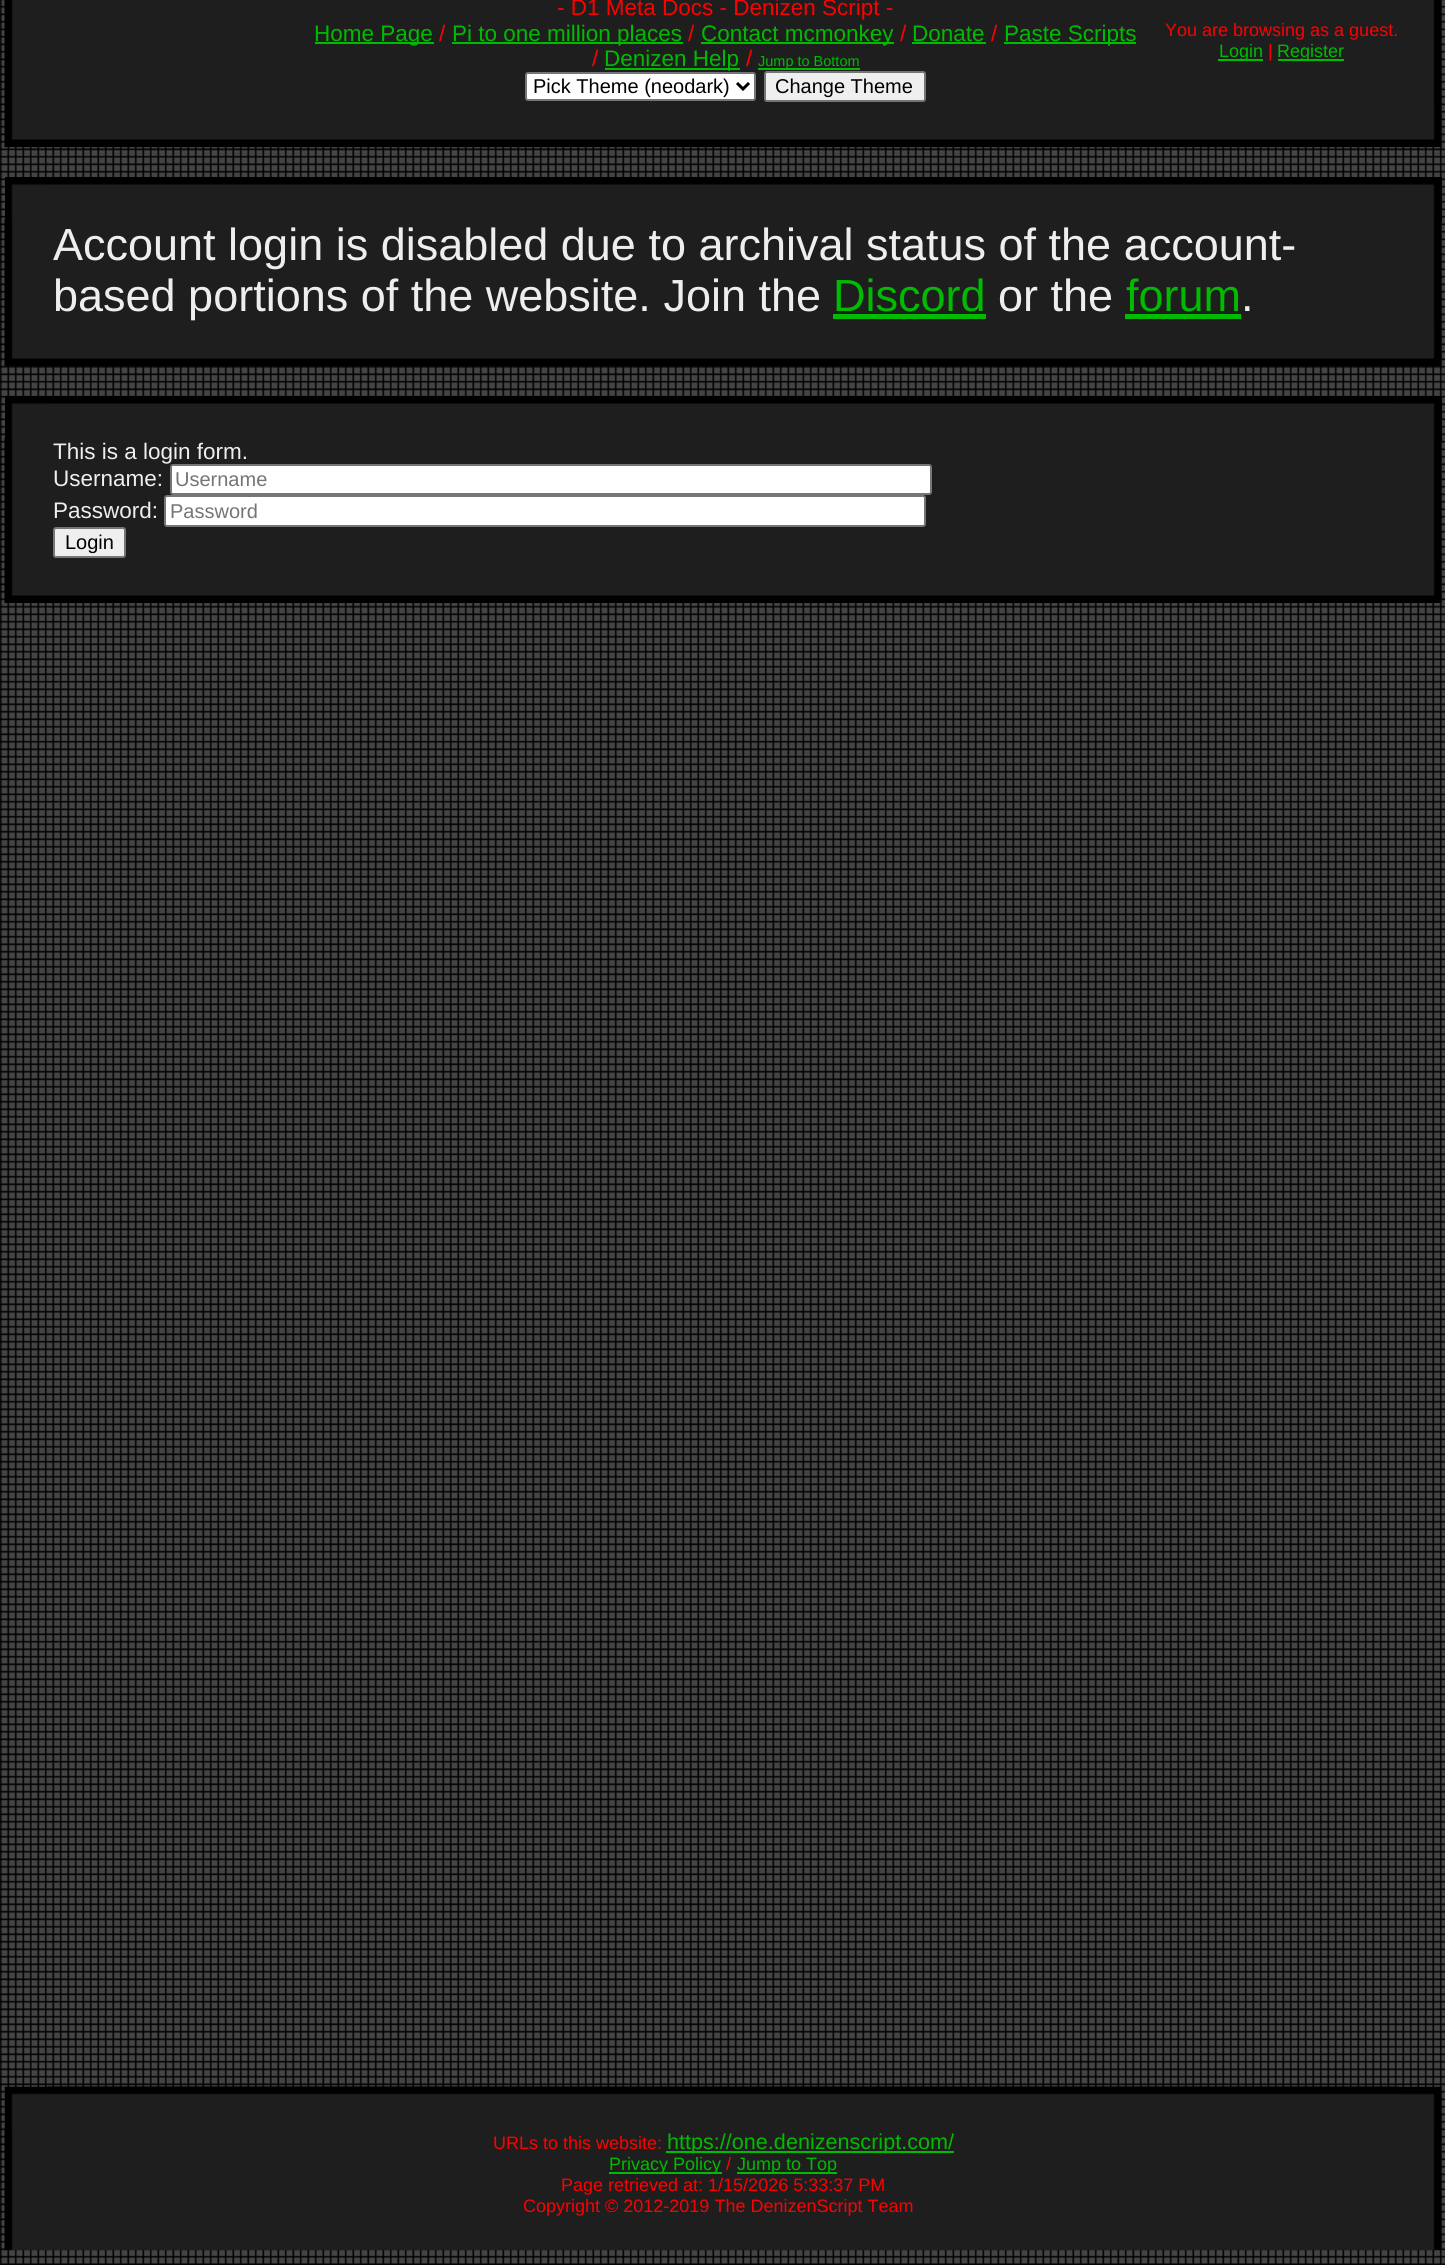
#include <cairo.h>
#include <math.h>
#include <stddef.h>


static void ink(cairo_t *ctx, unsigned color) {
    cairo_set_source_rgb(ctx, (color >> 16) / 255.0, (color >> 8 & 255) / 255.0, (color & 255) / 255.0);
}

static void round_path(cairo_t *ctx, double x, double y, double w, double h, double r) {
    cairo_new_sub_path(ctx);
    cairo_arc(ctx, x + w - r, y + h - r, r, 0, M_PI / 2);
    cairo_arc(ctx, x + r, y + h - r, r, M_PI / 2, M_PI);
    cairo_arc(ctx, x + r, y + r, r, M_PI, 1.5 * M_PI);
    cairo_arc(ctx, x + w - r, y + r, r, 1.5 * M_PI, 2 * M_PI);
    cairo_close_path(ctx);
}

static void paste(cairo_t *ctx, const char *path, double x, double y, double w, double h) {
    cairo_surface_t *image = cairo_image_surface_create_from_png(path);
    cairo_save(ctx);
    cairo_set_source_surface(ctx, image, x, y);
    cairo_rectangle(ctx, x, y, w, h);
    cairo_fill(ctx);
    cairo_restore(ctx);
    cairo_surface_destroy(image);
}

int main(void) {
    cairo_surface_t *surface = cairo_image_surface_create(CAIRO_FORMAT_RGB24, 1445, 2265);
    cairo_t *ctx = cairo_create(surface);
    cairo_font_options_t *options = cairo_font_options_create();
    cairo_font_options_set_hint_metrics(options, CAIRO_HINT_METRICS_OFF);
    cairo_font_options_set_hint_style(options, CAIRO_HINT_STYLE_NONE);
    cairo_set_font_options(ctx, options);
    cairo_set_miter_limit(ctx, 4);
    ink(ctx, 0xFFFFFF);
    cairo_paint(ctx);
    paste(ctx, "media/1.png", 0, 0, 1445, 2265);
    ink(ctx, 0x1E1E1E);
    cairo_rectangle(ctx, 48, 0, 1350, 102);
    cairo_fill(ctx);
    paste(ctx, "media/2.png", 4, 0, 44, 102);
    cairo_select_font_face(ctx, "Liberation Sans", CAIRO_FONT_SLANT_NORMAL, CAIRO_FONT_WEIGHT_NORMAL);
    cairo_set_font_size(ctx, 22.5);
    ink(ctx, 0xFF0000);
    cairo_move_to(ctx, 557, 15);
    cairo_show_text(ctx, "- D1 Meta Docs - Denizen Script -");
    ink(ctx, 0x00BB00);
    cairo_rectangle(ctx, 315, 42, 119, 2);
    cairo_fill(ctx);
    cairo_move_to(ctx, 314, 41);
    cairo_show_text(ctx, "Home Page");
    ink(ctx, 0xFF0000);
    cairo_move_to(ctx, 439, 41);
    cairo_show_text(ctx, "/");
    ink(ctx, 0x00BB00);
    cairo_rectangle(ctx, 452, 42, 231, 2);
    cairo_fill(ctx);
    cairo_move_to(ctx, 452, 41);
    cairo_show_text(ctx, "Pi to one million places");
    ink(ctx, 0xFF0000);
    cairo_move_to(ctx, 688, 41);
    cairo_show_text(ctx, "/");
    ink(ctx, 0x00BB00);
    cairo_rectangle(ctx, 701, 42, 193, 2);
    cairo_fill(ctx);
    cairo_move_to(ctx, 701, 41);
    cairo_show_text(ctx, "Contact mcmonkey");
    ink(ctx, 0xFF0000);
    cairo_move_to(ctx, 900, 41);
    cairo_show_text(ctx, "/");
    ink(ctx, 0x00BB00);
    cairo_move_to(ctx, 912, 41);
    cairo_show_text(ctx, "Donate");
    cairo_rectangle(ctx, 912, 42, 74, 2);
    cairo_fill(ctx);
    ink(ctx, 0xFF0000);
    cairo_move_to(ctx, 991, 41);
    cairo_show_text(ctx, "/");
    ink(ctx, 0x00BB00);
    cairo_rectangle(ctx, 1004, 42, 132, 2);
    cairo_fill(ctx);
    cairo_move_to(ctx, 1004, 41);
    cairo_show_text(ctx, "Paste Scripts");
    ink(ctx, 0xFF0000);
    cairo_move_to(ctx, 592, 66);
    cairo_show_text(ctx, "/");
    ink(ctx, 0x00BB00);
    cairo_rectangle(ctx, 605, 68, 135, 2);
    cairo_fill(ctx);
    cairo_move_to(ctx, 604, 66);
    cairo_show_text(ctx, "Denizen Help");
    ink(ctx, 0xFF0000);
    cairo_move_to(ctx, 746, 66);
    cairo_show_text(ctx, "/");
    ink(ctx, 0x00BB00);
    cairo_rectangle(ctx, 758, 68, 102, 2);
    cairo_fill(ctx);
    cairo_set_font_size(ctx, 14.5);
    cairo_move_to(ctx, 758, 66);
    cairo_show_text(ctx, "Jump to Bottom");
    ink(ctx, 0xFFFFFF);
    round_path(ctx, 526, 73, 229, 27, 2);
    cairo_fill_preserve(ctx);
    ink(ctx, 0x767676);
    cairo_stroke(ctx);
    cairo_new_path(ctx);
    cairo_move_to(ctx, 737, 83);
    cairo_line_to(ctx, 743, 89);
    cairo_line_to(ctx, 749, 83);
    ink(ctx, 0x000000);
    cairo_set_line_width(ctx, 3);
    cairo_stroke(ctx);
    cairo_set_font_size(ctx, 20);
    cairo_move_to(ctx, 533, 93);
    cairo_show_text(ctx, "Pick Theme (neodark)");
    ink(ctx, 0xEFEFEF);
    round_path(ctx, 765, 72, 160, 29, 2);
    cairo_fill_preserve(ctx);
    ink(ctx, 0x767676);
    cairo_set_line_width(ctx, 2);
    cairo_stroke(ctx);
    ink(ctx, 0x000000);
    cairo_move_to(ctx, 775, 93);
    cairo_show_text(ctx, "Change Theme");
    cairo_set_font_size(ctx, 18);
    ink(ctx, 0xFF0000);
    cairo_move_to(ctx, 1165, 36);
    cairo_show_text(ctx, "You are browsing as a guest.");
    ink(ctx, 0x00BB00);
    cairo_rectangle(ctx, 1218, 59, 45, 2);
    cairo_fill(ctx);
    cairo_move_to(ctx, 1219, 57);
    cairo_show_text(ctx, "Login");
    ink(ctx, 0xFF0000);
    cairo_move_to(ctx, 1268, 57);
    cairo_show_text(ctx, "|");
    ink(ctx, 0x00BB00);
    cairo_rectangle(ctx, 1278, 59, 66, 2);
    cairo_fill(ctx);
    cairo_move_to(ctx, 1277, 57);
    cairo_show_text(ctx, "Register");
    paste(ctx, "media/3.png", 1398, 0, 44, 102);
    paste(ctx, "media/4.png", 48, 102, 1350, 45);
    paste(ctx, "media/5.png", 4, 102, 44, 45);
    paste(ctx, "media/6.png", 1398, 102, 44, 45);
    paste(ctx, "media/7.png", 48, 177, 1350, 42);
    paste(ctx, "media/8.png", 5, 177, 43, 42);
    paste(ctx, "media/9.png", 1398, 177, 44, 45);
    ink(ctx, 0x1E1E1E);
    cairo_rectangle(ctx, 48, 219, 1350, 102);
    cairo_fill(ctx);
    paste(ctx, "media/10.png", 4, 219, 44, 102);
    cairo_set_font_size(ctx, 45);
    ink(ctx, 0xEEEEEE);
    cairo_move_to(ctx, 53, 260);
    cairo_show_text(ctx, "Account login is disabled due to archival status of the account-");
    cairo_move_to(ctx, 53, 311);
    cairo_show_text(ctx, "based portions of the website. Join the");
    ink(ctx, 0x00BB00);
    cairo_move_to(ctx, 833, 311);
    cairo_show_text(ctx, "Discord");
    cairo_rectangle(ctx, 833, 314, 153, 5);
    cairo_fill(ctx);
    ink(ctx, 0xEEEEEE);
    cairo_move_to(ctx, 998, 311);
    cairo_show_text(ctx, "or the");
    ink(ctx, 0x00BB00);
    cairo_move_to(ctx, 1126, 311);
    cairo_show_text(ctx, "forum");
    ink(ctx, 0xEEEEEE);
    cairo_move_to(ctx, 1241, 311);
    cairo_show_text(ctx, ".");
    ink(ctx, 0x00BB00);
    cairo_rectangle(ctx, 1125, 314, 116, 5);
    cairo_fill(ctx);
    paste(ctx, "media/11.png", 1398, 222, 44, 99);
    paste(ctx, "media/4.png", 48, 321, 1350, 45);
    paste(ctx, "media/12.png", 4, 321, 44, 45);
    paste(ctx, "media/13.png", 1398, 321, 44, 45);
    paste(ctx, "media/7.png", 48, 396, 1350, 42);
    paste(ctx, "media/8.png", 5, 396, 43, 42);
    paste(ctx, "media/9.png", 1398, 396, 44, 45);
    ink(ctx, 0x1E1E1E);
    cairo_rectangle(ctx, 48, 438, 1350, 120);
    cairo_fill(ctx);
    paste(ctx, "media/14.png", 4, 438, 44, 120);
    cairo_set_font_size(ctx, 22.5);
    ink(ctx, 0xEEEEEE);
    cairo_move_to(ctx, 53, 459);
    cairo_show_text(ctx, "This is a login form.");
    cairo_move_to(ctx, 53, 486);
    cairo_show_text(ctx, "Username:");
    ink(ctx, 0xFFFFFF);
    round_path(ctx, 171, 465, 760, 29, 2);
    cairo_fill_preserve(ctx);
    ink(ctx, 0x767676);
    cairo_stroke(ctx);
    cairo_set_font_size(ctx, 20);
    ink(ctx, 0x757575);
    cairo_move_to(ctx, 175, 486);
    cairo_show_text(ctx, "Username");
    cairo_set_font_size(ctx, 22.5);
    ink(ctx, 0xEEEEEE);
    cairo_move_to(ctx, 53, 518);
    cairo_show_text(ctx, "Password:");
    ink(ctx, 0xFFFFFF);
    round_path(ctx, 165, 496, 760, 30, 2);
    cairo_fill_preserve(ctx);
    ink(ctx, 0x767676);
    cairo_stroke(ctx);
    cairo_set_font_size(ctx, 20);
    ink(ctx, 0x757575);
    cairo_move_to(ctx, 170, 518);
    cairo_show_text(ctx, "Password");
    ink(ctx, 0xEFEFEF);
    round_path(ctx, 54, 528, 71, 29, 2);
    cairo_fill_preserve(ctx);
    ink(ctx, 0x767676);
    cairo_stroke(ctx);
    ink(ctx, 0x000000);
    cairo_move_to(ctx, 65, 549);
    cairo_show_text(ctx, "Login");
    paste(ctx, "media/15.png", 1398, 441, 44, 117);
    paste(ctx, "media/4.png", 48, 558, 1350, 45);
    paste(ctx, "media/16.png", 4, 558, 44, 45);
    paste(ctx, "media/17.png", 1398, 558, 44, 45);
    paste(ctx, "media/18.png", 48, 2086, 1350, 44);
    paste(ctx, "media/19.png", 4, 2086, 46, 46);
    paste(ctx, "media/22.png", 1398, 2130, 44, 120);
    paste(ctx, "media/20.png", 1397, 2086, 45, 46);
    ink(ctx, 0x1E1E1E);
    cairo_rectangle(ctx, 48, 2130, 1350, 120);
    cairo_fill(ctx);
    paste(ctx, "media/21.png", 4, 2130, 44, 120);
    cairo_set_font_size(ctx, 18);
    ink(ctx, 0xFF0000);
    cairo_move_to(ctx, 493, 2149);
    cairo_show_text(ctx, "URLs to this website:");
    ink(ctx, 0x00BB00);
    cairo_rectangle(ctx, 666, 2151, 288, 2);
    cairo_fill(ctx);
    cairo_set_font_size(ctx, 21.6);
    cairo_move_to(ctx, 667, 2149);
    cairo_show_text(ctx, "https://one.denizenscript.com/");
    cairo_rectangle(ctx, 609, 2172, 113, 2);
    cairo_fill(ctx);
    cairo_set_font_size(ctx, 18);
    cairo_move_to(ctx, 609, 2170);
    cairo_show_text(ctx, "Privacy Policy");
    ink(ctx, 0xFF0000);
    cairo_move_to(ctx, 726, 2170);
    cairo_show_text(ctx, "/");
    ink(ctx, 0x00BB00);
    cairo_rectangle(ctx, 737, 2172, 100, 2);
    cairo_fill(ctx);
    cairo_move_to(ctx, 737, 2170);
    cairo_show_text(ctx, "Jump to Top");
    ink(ctx, 0xFF0000);
    cairo_move_to(ctx, 561, 2191);
    cairo_show_text(ctx, "Page retrieved at: 1/15/2026 5:33:37 PM");
    cairo_move_to(ctx, 523, 2212);
    cairo_show_text(ctx, "Copyright © 2012-2019 The DenizenScript Team");
    cairo_surface_write_to_png(surface, "image.png");
    cairo_font_options_destroy(options);
    cairo_destroy(ctx);
    cairo_surface_destroy(surface);
    return 0;
}
